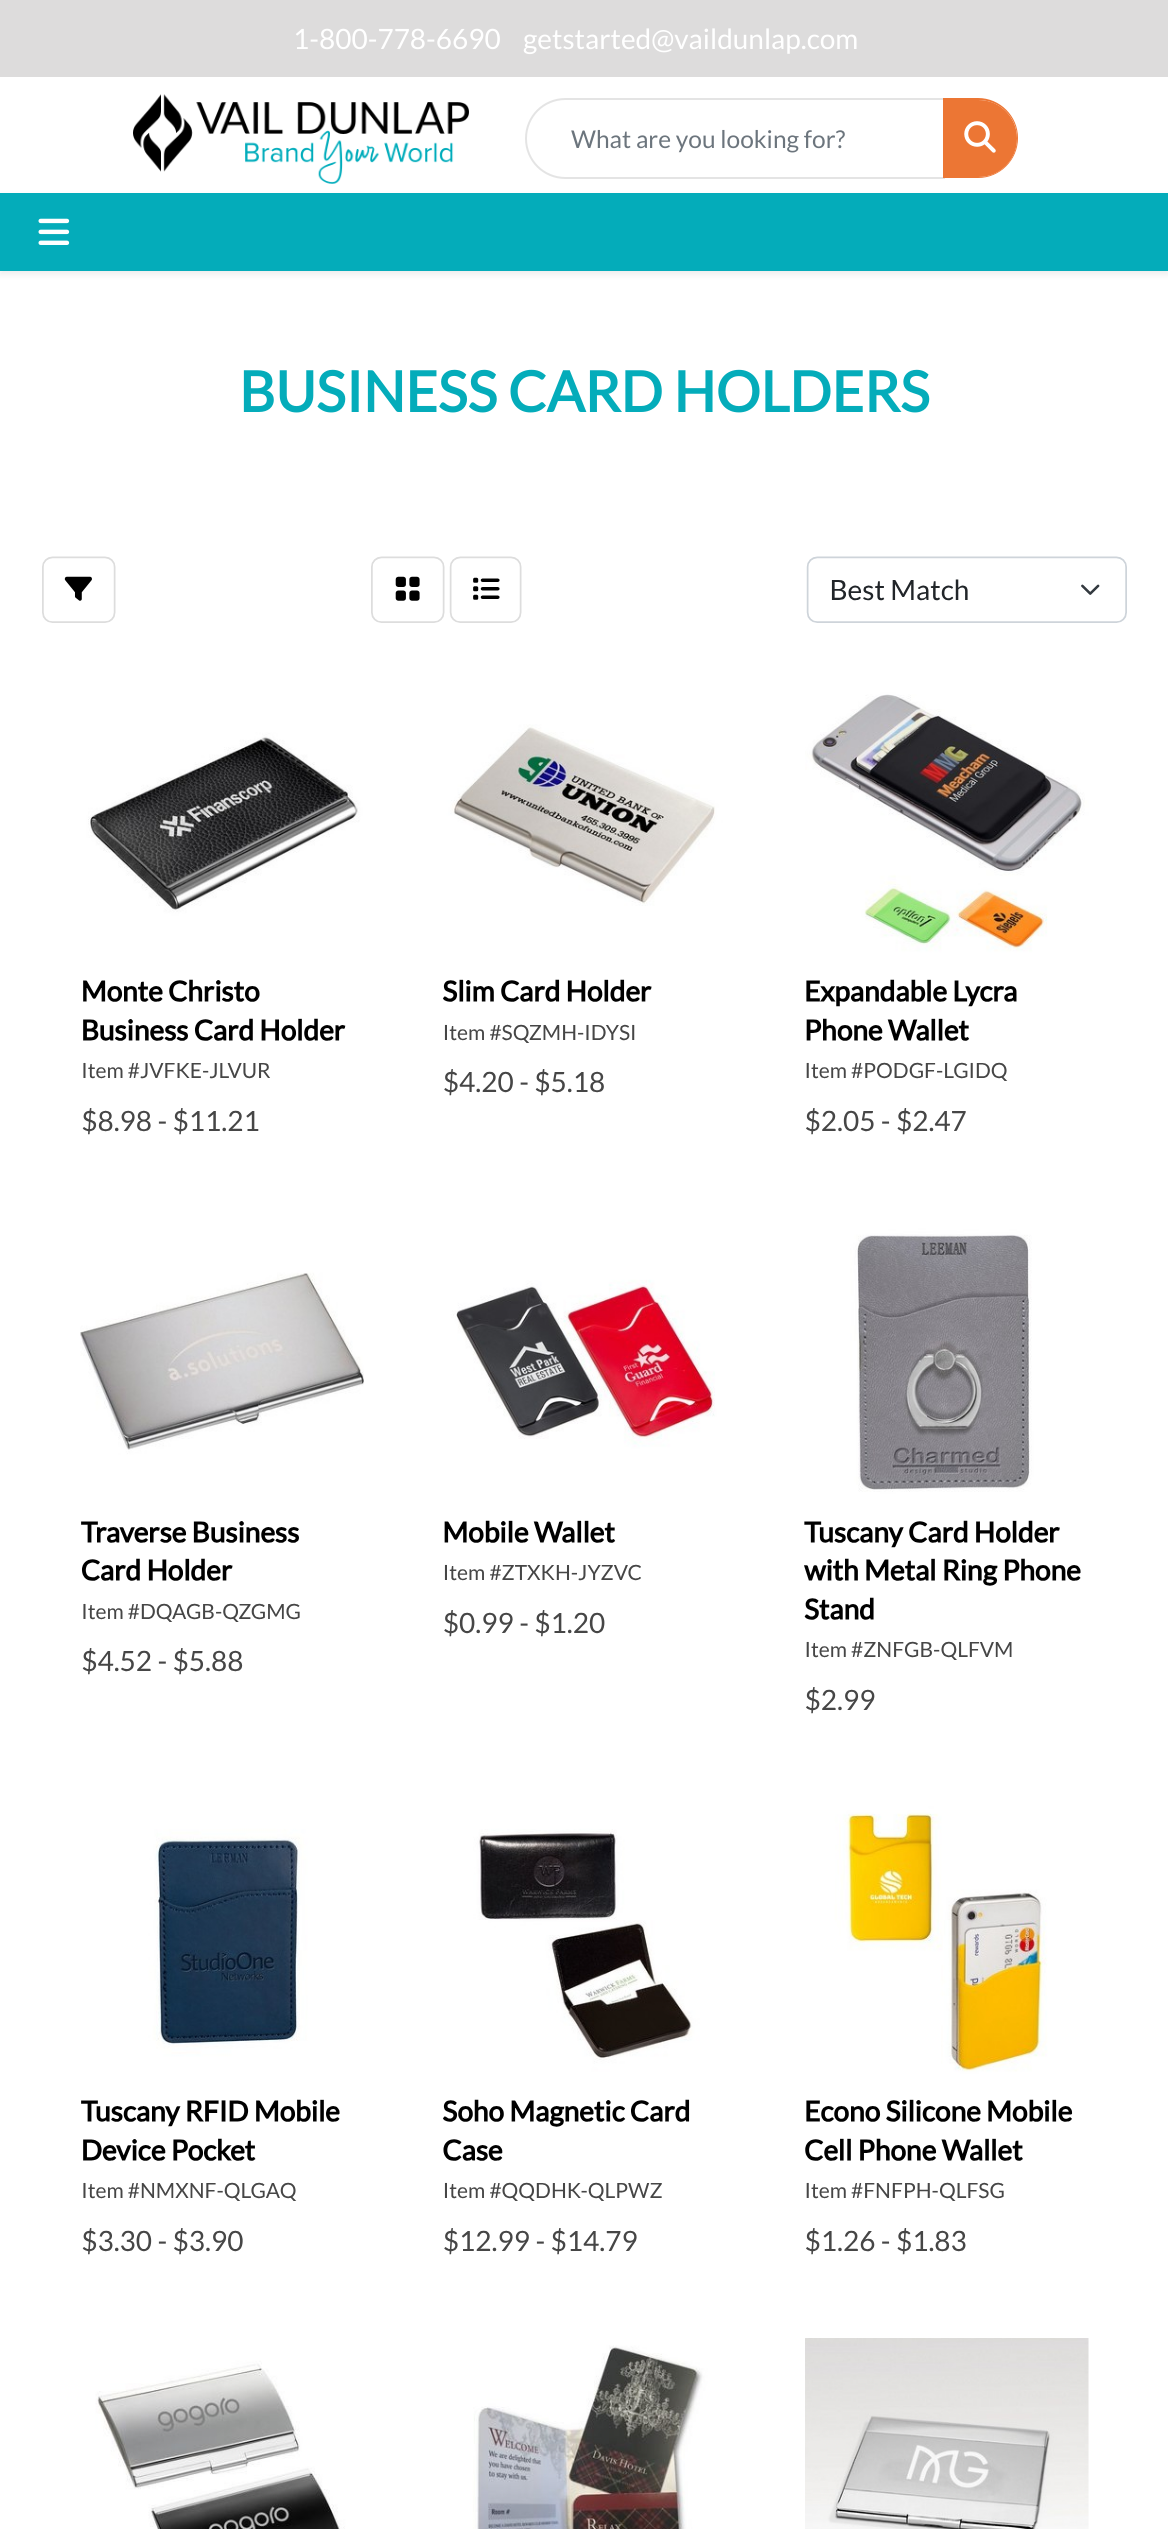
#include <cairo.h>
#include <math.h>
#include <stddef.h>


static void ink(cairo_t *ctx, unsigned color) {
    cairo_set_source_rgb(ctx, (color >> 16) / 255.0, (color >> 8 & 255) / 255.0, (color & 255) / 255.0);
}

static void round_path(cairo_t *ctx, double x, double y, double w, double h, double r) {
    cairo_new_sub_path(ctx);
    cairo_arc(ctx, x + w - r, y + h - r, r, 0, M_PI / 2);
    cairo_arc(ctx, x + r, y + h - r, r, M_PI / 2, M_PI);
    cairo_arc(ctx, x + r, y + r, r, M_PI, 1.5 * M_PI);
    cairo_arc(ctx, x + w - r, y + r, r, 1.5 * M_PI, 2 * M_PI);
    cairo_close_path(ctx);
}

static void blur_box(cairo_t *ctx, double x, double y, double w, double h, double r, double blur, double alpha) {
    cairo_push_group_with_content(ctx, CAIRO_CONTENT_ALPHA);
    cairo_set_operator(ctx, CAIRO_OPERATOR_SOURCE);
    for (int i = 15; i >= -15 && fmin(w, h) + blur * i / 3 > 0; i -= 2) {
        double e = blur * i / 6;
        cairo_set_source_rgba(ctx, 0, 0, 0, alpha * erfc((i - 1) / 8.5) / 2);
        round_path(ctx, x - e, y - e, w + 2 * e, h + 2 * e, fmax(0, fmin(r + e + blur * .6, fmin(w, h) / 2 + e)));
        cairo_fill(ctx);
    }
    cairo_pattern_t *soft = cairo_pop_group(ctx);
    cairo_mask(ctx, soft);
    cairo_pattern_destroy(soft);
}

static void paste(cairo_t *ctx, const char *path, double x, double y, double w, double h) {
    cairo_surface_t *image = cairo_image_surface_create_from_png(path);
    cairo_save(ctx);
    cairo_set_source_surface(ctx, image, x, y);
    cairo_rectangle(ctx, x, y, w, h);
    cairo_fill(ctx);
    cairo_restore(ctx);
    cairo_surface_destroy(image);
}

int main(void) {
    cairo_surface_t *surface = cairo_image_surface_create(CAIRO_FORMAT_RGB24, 1168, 2529);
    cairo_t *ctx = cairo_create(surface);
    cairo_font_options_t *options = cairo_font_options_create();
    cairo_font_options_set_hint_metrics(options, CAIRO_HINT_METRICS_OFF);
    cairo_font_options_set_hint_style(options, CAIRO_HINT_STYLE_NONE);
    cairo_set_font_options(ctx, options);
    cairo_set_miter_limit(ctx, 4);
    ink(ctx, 0xFFFFFF);
    cairo_paint(ctx);
    ink(ctx, 0xDDDCDC);
    cairo_rectangle(ctx, 0, 0, 1168, 77);
    cairo_fill(ctx);
    cairo_select_font_face(ctx, "Lato", CAIRO_FONT_SLANT_NORMAL, CAIRO_FONT_WEIGHT_NORMAL);
    cairo_set_font_size(ctx, 28);
    ink(ctx, 0xFFFFFF);
    cairo_move_to(ctx, 293, 49);
    cairo_show_text(ctx, "1-800-778-6690");
    cairo_move_to(ctx, 523, 49);
    cairo_show_text(ctx, "getstarted@vaildunlap.com");
    paste(ctx, "media/1.png", 133, 94, 336, 90);
    cairo_new_path(ctx);
    cairo_move_to(ctx, 565.5, 99);
    cairo_line_to(ctx, 944, 99);
    cairo_line_to(ctx, 944, 178);
    cairo_line_to(ctx, 565.5, 178);
    cairo_curve_to(ctx, 543.5, 178, 526, 160.5, 526, 138.5);
    cairo_curve_to(ctx, 526, 116.5, 543.5, 99, 565.5, 99);
    cairo_close_path(ctx);
    ink(ctx, 0xE4E4E4);
    cairo_stroke(ctx);
    cairo_set_font_size(ctx, 24.5);
    ink(ctx, 0x6C757D);
    cairo_move_to(ctx, 571, 148);
    cairo_show_text(ctx, "What are you looking for?");
    ink(ctx, 0xEC7634);
    cairo_new_path(ctx);
    cairo_move_to(ctx, 943, 100);
    cairo_line_to(ctx, 978.5, 100);
    cairo_curve_to(ctx, 1000, 100, 1017, 117, 1017, 138.5);
    cairo_curve_to(ctx, 1017, 160, 1000, 177, 978.5, 177);
    cairo_line_to(ctx, 943, 177);
    cairo_close_path(ctx);
    cairo_fill(ctx);
    cairo_set_fill_rule(ctx, CAIRO_FILL_RULE_EVEN_ODD);
    cairo_new_path(ctx);
    cairo_move_to(ctx, 943, 98);
    cairo_line_to(ctx, 978, 98);
    cairo_curve_to(ctx, 1000, 98, 1018, 116, 1018, 138);
    cairo_curve_to(ctx, 1018, 160, 1000, 178, 978, 178);
    cairo_line_to(ctx, 943, 178);
    cairo_close_path(ctx);
    cairo_move_to(ctx, 943, 100);
    cairo_line_to(ctx, 978, 100);
    cairo_curve_to(ctx, 1000, 100, 1017, 117, 1017, 138);
    cairo_curve_to(ctx, 1017, 160, 1000, 177, 978, 177);
    cairo_line_to(ctx, 943, 177);
    cairo_close_path(ctx);
    cairo_fill(ctx);
    paste(ctx, "media/2.png", 964, 121, 32, 32);
    ink(ctx, 0x000000);
    blur_box(ctx, 0, 196, 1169, 79, 0, 3.5, 0.07);
    ink(ctx, 0x04ACBA);
    cairo_rectangle(ctx, 0, 193, 1168, 78);
    cairo_fill(ctx);
    paste(ctx, "media/3.png", 38, 218, 32, 27);
    cairo_select_font_face(ctx, "Lato", CAIRO_FONT_SLANT_NORMAL, CAIRO_FONT_WEIGHT_BOLD);
    cairo_set_font_size(ctx, 56);
    cairo_move_to(ctx, 239, 412);
    cairo_show_text(ctx, "BUSINESS CARD HOLDERS");
    paste(ctx, "media/4.png", 42, 556, 1085, 1973);
    cairo_surface_write_to_png(surface, "image.png");
    cairo_font_options_destroy(options);
    cairo_destroy(ctx);
    cairo_surface_destroy(surface);
    return 0;
}
